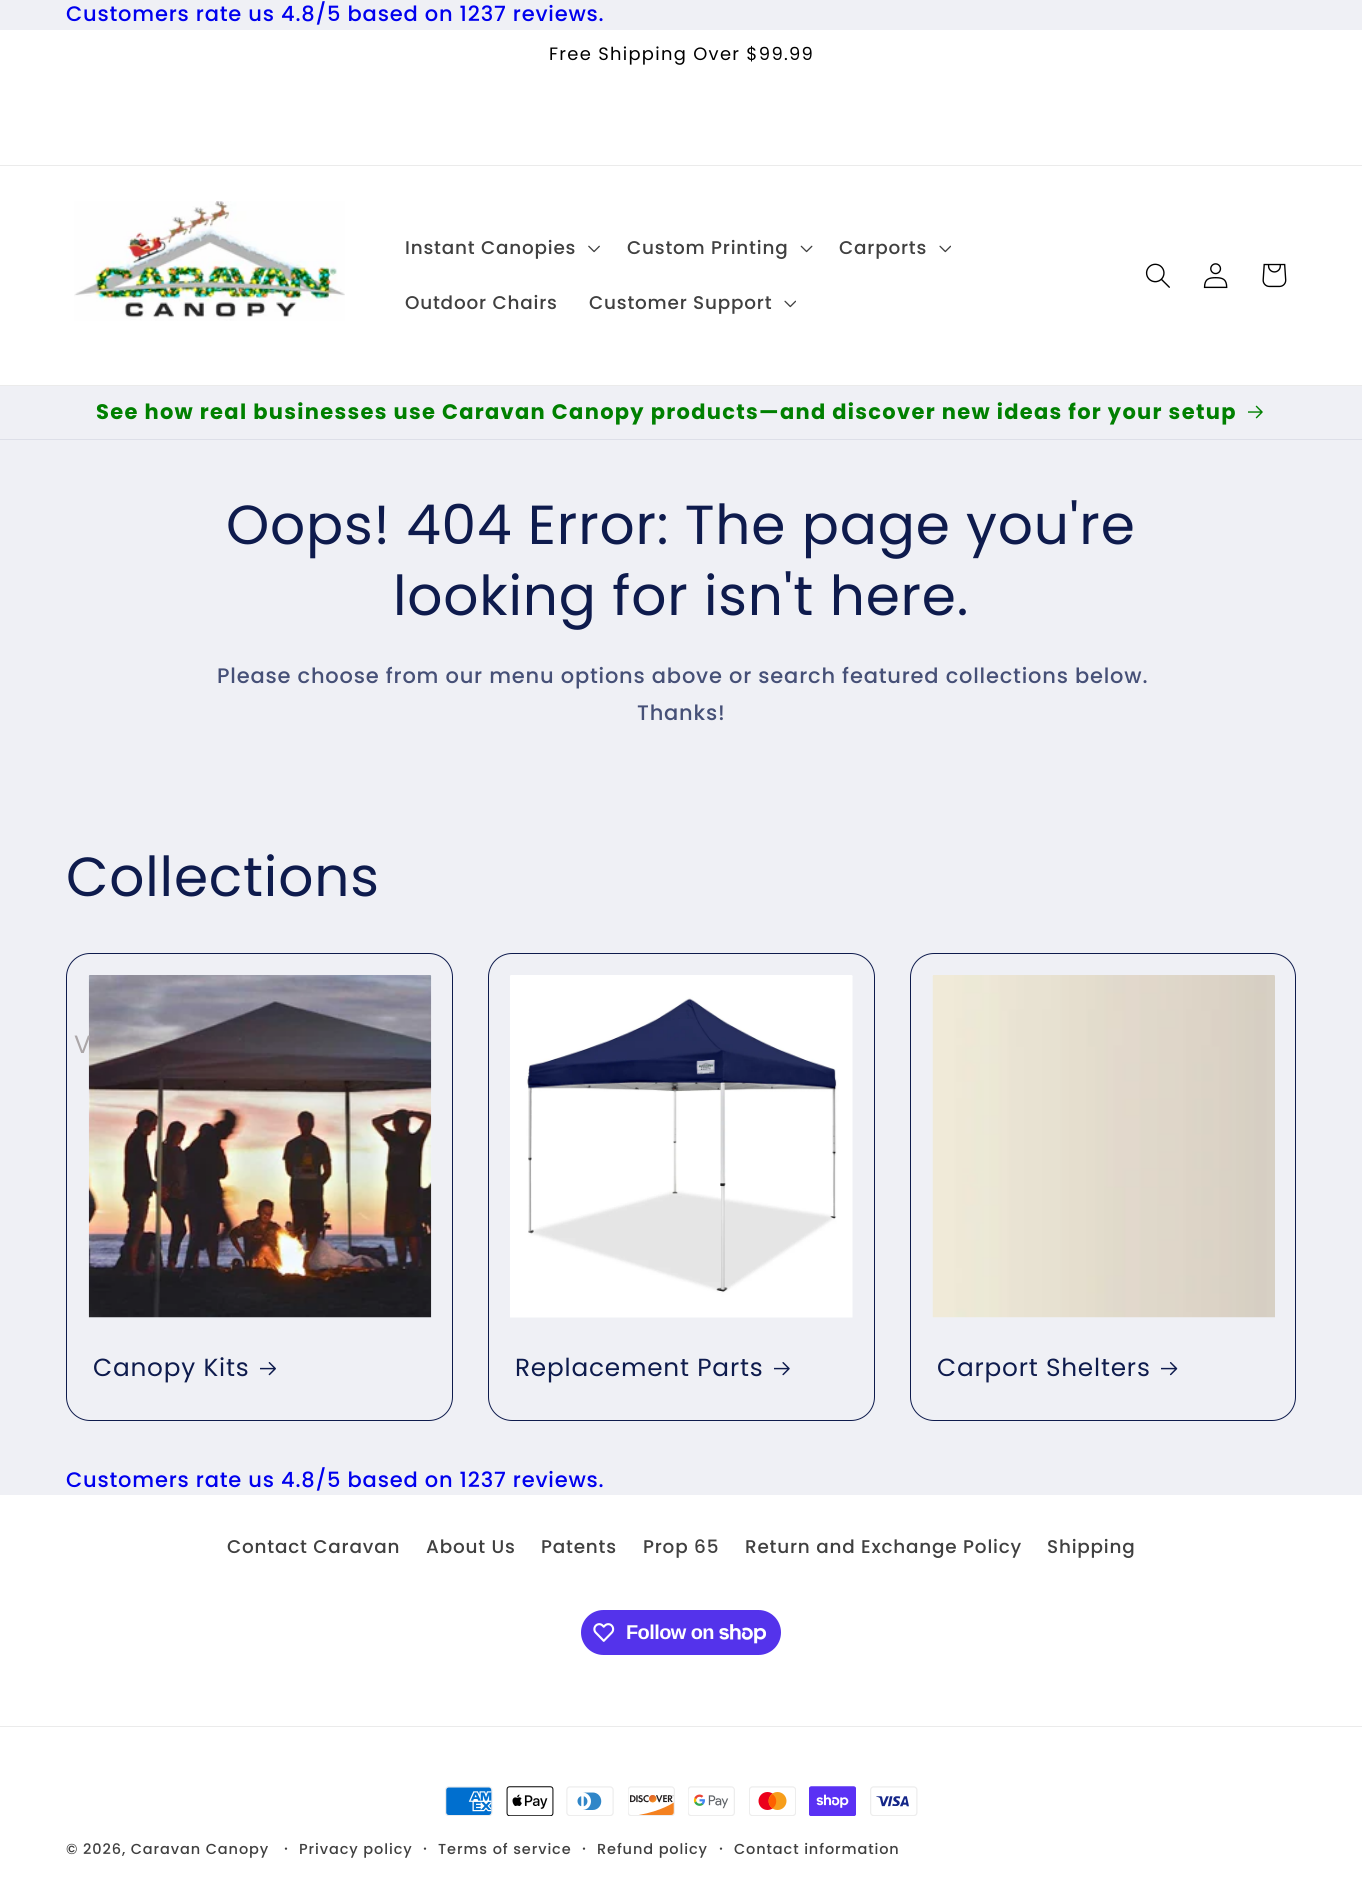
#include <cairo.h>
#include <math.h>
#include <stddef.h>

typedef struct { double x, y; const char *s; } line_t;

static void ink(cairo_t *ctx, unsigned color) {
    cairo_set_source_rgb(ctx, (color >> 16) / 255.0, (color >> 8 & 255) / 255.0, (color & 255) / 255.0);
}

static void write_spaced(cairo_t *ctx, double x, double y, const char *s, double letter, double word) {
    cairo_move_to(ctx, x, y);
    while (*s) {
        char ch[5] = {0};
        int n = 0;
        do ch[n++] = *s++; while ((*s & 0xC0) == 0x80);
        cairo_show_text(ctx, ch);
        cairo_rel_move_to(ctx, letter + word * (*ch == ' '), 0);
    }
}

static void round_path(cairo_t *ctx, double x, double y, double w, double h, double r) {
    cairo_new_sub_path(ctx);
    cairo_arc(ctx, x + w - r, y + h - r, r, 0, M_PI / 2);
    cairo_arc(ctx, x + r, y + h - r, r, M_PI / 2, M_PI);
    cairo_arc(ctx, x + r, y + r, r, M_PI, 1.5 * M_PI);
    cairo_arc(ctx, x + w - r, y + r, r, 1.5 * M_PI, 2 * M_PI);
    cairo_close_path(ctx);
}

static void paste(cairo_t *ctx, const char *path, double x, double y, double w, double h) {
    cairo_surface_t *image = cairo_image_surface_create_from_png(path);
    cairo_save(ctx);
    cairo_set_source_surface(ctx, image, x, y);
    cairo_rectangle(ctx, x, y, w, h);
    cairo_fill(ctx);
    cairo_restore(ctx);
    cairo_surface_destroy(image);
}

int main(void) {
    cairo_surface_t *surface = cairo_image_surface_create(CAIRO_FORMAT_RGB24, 1362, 1892);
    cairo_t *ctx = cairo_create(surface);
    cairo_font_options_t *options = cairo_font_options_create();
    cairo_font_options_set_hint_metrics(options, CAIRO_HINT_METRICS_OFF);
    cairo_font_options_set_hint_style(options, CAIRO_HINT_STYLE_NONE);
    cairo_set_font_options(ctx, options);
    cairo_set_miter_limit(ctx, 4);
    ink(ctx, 0xEFF0F5);
    cairo_paint(ctx);
    cairo_select_font_face(ctx, "Poppins Medium", CAIRO_FONT_SLANT_NORMAL, CAIRO_FONT_WEIGHT_NORMAL);
    cairo_set_font_size(ctx, 21);
    ink(ctx, 0x0000EE);
    write_spaced(ctx, 66, 21, "Customers rate us 4.8/5 based on 1237 reviews.", 0.8, 0);
    ink(ctx, 0xFFFFFF);
    cairo_rectangle(ctx, 0, 30, 1362, 135);
    cairo_fill(ctx);
    ink(ctx, 0xEBEBEB);
    cairo_rectangle(ctx, 0, 165, 1362, 1);
    cairo_fill(ctx);
    cairo_select_font_face(ctx, "Poppins", CAIRO_FONT_SLANT_NORMAL, CAIRO_FONT_WEIGHT_NORMAL);
    cairo_set_font_size(ctx, 17.9);
    ink(ctx, 0x000000);
    write_spaced(ctx, 549, 60, "Free Shipping Over $99.99", 1.3, 0);
    ink(ctx, 0xFFFFFF);
    cairo_rectangle(ctx, 0, 166, 1362, 219);
    cairo_fill(ctx);
    ink(ctx, 0xEBEBEB);
    cairo_rectangle(ctx, 0, 385, 1362, 1);
    cairo_fill(ctx);
    paste(ctx, "media/1.png", 74, 201, 271, 120);
    cairo_select_font_face(ctx, "Poppins Medium", CAIRO_FONT_SLANT_NORMAL, CAIRO_FONT_WEIGHT_NORMAL);
    cairo_set_font_size(ctx, 18.4);
    ink(ctx, 0x404040);
    write_spaced(ctx, 405, 254, "Instant Canopies", 0.8, 0);
    paste(ctx, "media/2.png", 588, 245, 12, 8);
    write_spaced(ctx, 627, 254, "Custom Printing", 0.8, 0);
    paste(ctx, "media/3.png", 800, 245, 13, 8);
    write_spaced(ctx, 839, 254, "Carports", 0.8, 0);
    paste(ctx, "media/4.png", 939, 245, 12, 8);
    write_spaced(ctx, 405, 309, "Outdoor Chairs", 0.8, 0);
    write_spaced(ctx, 589, 309, "Customer Support", 0.8, 0);
    paste(ctx, "media/4.png", 784, 300, 12, 8);
    paste(ctx, "media/5.png", 1145, 263, 25, 25);
    paste(ctx, "media/6.png", 1203, 263, 25, 26);
    paste(ctx, "media/7.png", 1262, 263, 25, 25);
    ink(ctx, 0xDDDFE8);
    cairo_rectangle(ctx, 0, 439, 1362, 1);
    cairo_fill(ctx);
    cairo_select_font_face(ctx, "Poppins", CAIRO_FONT_SLANT_NORMAL, CAIRO_FONT_WEIGHT_BOLD);
    cairo_set_font_size(ctx, 21);
    ink(ctx, 0x008000);
    write_spaced(ctx, 96, 419, "See how real businesses use Caravan Canopy products—and discover new ideas for your setup", 1.3, 0);
    paste(ctx, "media/8.png", 1248, 405, 15, 14);
    cairo_select_font_face(ctx, "Poppins", CAIRO_FONT_SLANT_NORMAL, CAIRO_FONT_WEIGHT_NORMAL);
    cairo_set_font_size(ctx, 55);
    ink(ctx, 0x0E1B4D);
    write_spaced(ctx, 226, 544, "Oops! 404 Error: The page you're", 0.8, 0);
    write_spaced(ctx, 393, 615, "looking for isn't here.", 0.8, 0);
    cairo_select_font_face(ctx, "Poppins Medium", CAIRO_FONT_SLANT_NORMAL, CAIRO_FONT_WEIGHT_NORMAL);
    cairo_set_font_size(ctx, 21);
    ink(ctx, 0x465077);
    write_spaced(ctx, 217, 683, "Please choose from our menu options above or search featured collections below.", 0.8, 0);
    write_spaced(ctx, 637, 720, "Thanks!", 0.8, 0);
    cairo_select_font_face(ctx, "Poppins", CAIRO_FONT_SLANT_NORMAL, CAIRO_FONT_WEIGHT_NORMAL);
    cairo_set_font_size(ctx, 55);
    ink(ctx, 0x0E1B4D);
    write_spaced(ctx, 66, 896, "Collections", 0.8, 0);
    round_path(ctx, 66.5, 953.5, 386, 467, 23.5);
    cairo_set_line_width(ctx, 1);
    cairo_stroke(ctx);
    paste(ctx, "media/9.png", 88, 975, 344, 343);
    cairo_set_font_size(ctx, 24.75);
    write_spaced(ctx, 93, 1376, "Canopy Kits", 0.8, 0);
    paste(ctx, "media/10.png", 260, 1362, 16, 14);
    round_path(ctx, 488.5, 953.5, 386, 467, 23.5);
    cairo_stroke(ctx);
    paste(ctx, "media/11.png", 510, 975, 343, 343);
    write_spaced(ctx, 515, 1376, "Replacement Parts", 0.8, 0);
    paste(ctx, "media/12.png", 774, 1362, 16, 14);
    round_path(ctx, 910.5, 953.5, 385, 467, 23.5);
    cairo_stroke(ctx);
    paste(ctx, "media/13.png", 932, 975, 343, 343);
    write_spaced(ctx, 937, 1376, "Carport Shelters", 0.8, 0);
    paste(ctx, "media/14.png", 1161, 1362, 17, 14);
    cairo_set_font_size(ctx, 25);
    ink(ctx, 0xABA6A8);
    write_spaced(ctx, 74, 1053, "V", 0.8, 0);
    cairo_select_font_face(ctx, "Poppins Medium", CAIRO_FONT_SLANT_NORMAL, CAIRO_FONT_WEIGHT_NORMAL);
    cairo_set_font_size(ctx, 21);
    ink(ctx, 0x0000EE);
    write_spaced(ctx, 66, 1487, "Customers rate us 4.8/5 based on 1237 reviews.", 0.8, 0);
    ink(ctx, 0xFFFFFF);
    cairo_rectangle(ctx, 0, 1495, 1362, 397);
    cairo_fill(ctx);
    cairo_set_font_size(ctx, 18.4);
    ink(ctx, 0x404040);
    {
        static const line_t items[] = {
            {227, 1553, "Contact Caravan"},
            {426, 1553, "About Us"},
            {541, 1553, "Patents"},
            {643, 1553, "Prop 65"},
            {745, 1553, "Return and Exchange Policy"},
            {1047, 1553, "Shipping"},
        };
        for (size_t i = 0; i < sizeof items / sizeof *items; i++) {
            write_spaced(ctx, items[i].x, items[i].y, items[i].s, 0.8, 0);
        }
    }
    ink(ctx, 0x5433EB);
    round_path(ctx, 581, 1610, 200, 45, 22.5);
    cairo_fill(ctx);
    paste(ctx, "media/15.png", 593, 1623, 22, 19);
    cairo_select_font_face(ctx, "Liberation Sans", CAIRO_FONT_SLANT_NORMAL, CAIRO_FONT_WEIGHT_BOLD);
    cairo_set_font_size(ctx, 20);
    ink(ctx, 0xFFFFFF);
    write_spaced(ctx, 626, 1639, "Follow on", -0.6, 0);
    paste(ctx, "media/16.png", 719, 1624, 47, 20);
    ink(ctx, 0xEBEBEB);
    cairo_rectangle(ctx, 0, 1726, 1362, 1);
    cairo_fill(ctx);
    paste(ctx, "media/17.png", 445, 1786, 48, 30);
    paste(ctx, "media/18.png", 506, 1786, 48, 30);
    paste(ctx, "media/19.png", 566, 1786, 48, 30);
    paste(ctx, "media/20.png", 628, 1786, 47, 30);
    paste(ctx, "media/21.png", 688, 1786, 47, 30);
    paste(ctx, "media/22.png", 749, 1786, 47, 30);
    paste(ctx, "media/23.png", 809, 1786, 47, 30);
    paste(ctx, "media/24.png", 870, 1786, 48, 30);
    cairo_select_font_face(ctx, "Poppins Medium", CAIRO_FONT_SLANT_NORMAL, CAIRO_FONT_WEIGHT_NORMAL);
    cairo_set_font_size(ctx, 14.5);
    ink(ctx, 0x404040);
    write_spaced(ctx, 66, 1854, "© 2026, Caravan Canopy", 0.9, 0);
    cairo_set_font_size(ctx, 16);
    write_spaced(ctx, 284, 1854, "·", 0.9, 0);
    cairo_set_font_size(ctx, 14.5);
    write_spaced(ctx, 299, 1854, "Privacy policy", 0.9, 0);
    cairo_set_font_size(ctx, 16);
    write_spaced(ctx, 423, 1854, "·", 0.9, 0);
    cairo_set_font_size(ctx, 14.5);
    write_spaced(ctx, 438, 1854, "Terms of service", 0.9, 0);
    cairo_set_font_size(ctx, 16);
    write_spaced(ctx, 582, 1854, "·", 0.9, 0);
    cairo_set_font_size(ctx, 14.5);
    write_spaced(ctx, 597, 1854, "Refund policy", 0.9, 0);
    cairo_set_font_size(ctx, 16);
    write_spaced(ctx, 719, 1854, "·", 0.9, 0);
    cairo_set_font_size(ctx, 14.5);
    write_spaced(ctx, 734, 1854, "Contact information", 0.9, 0);
    cairo_surface_write_to_png(surface, "image.png");
    cairo_font_options_destroy(options);
    cairo_destroy(ctx);
    cairo_surface_destroy(surface);
    return 0;
}
